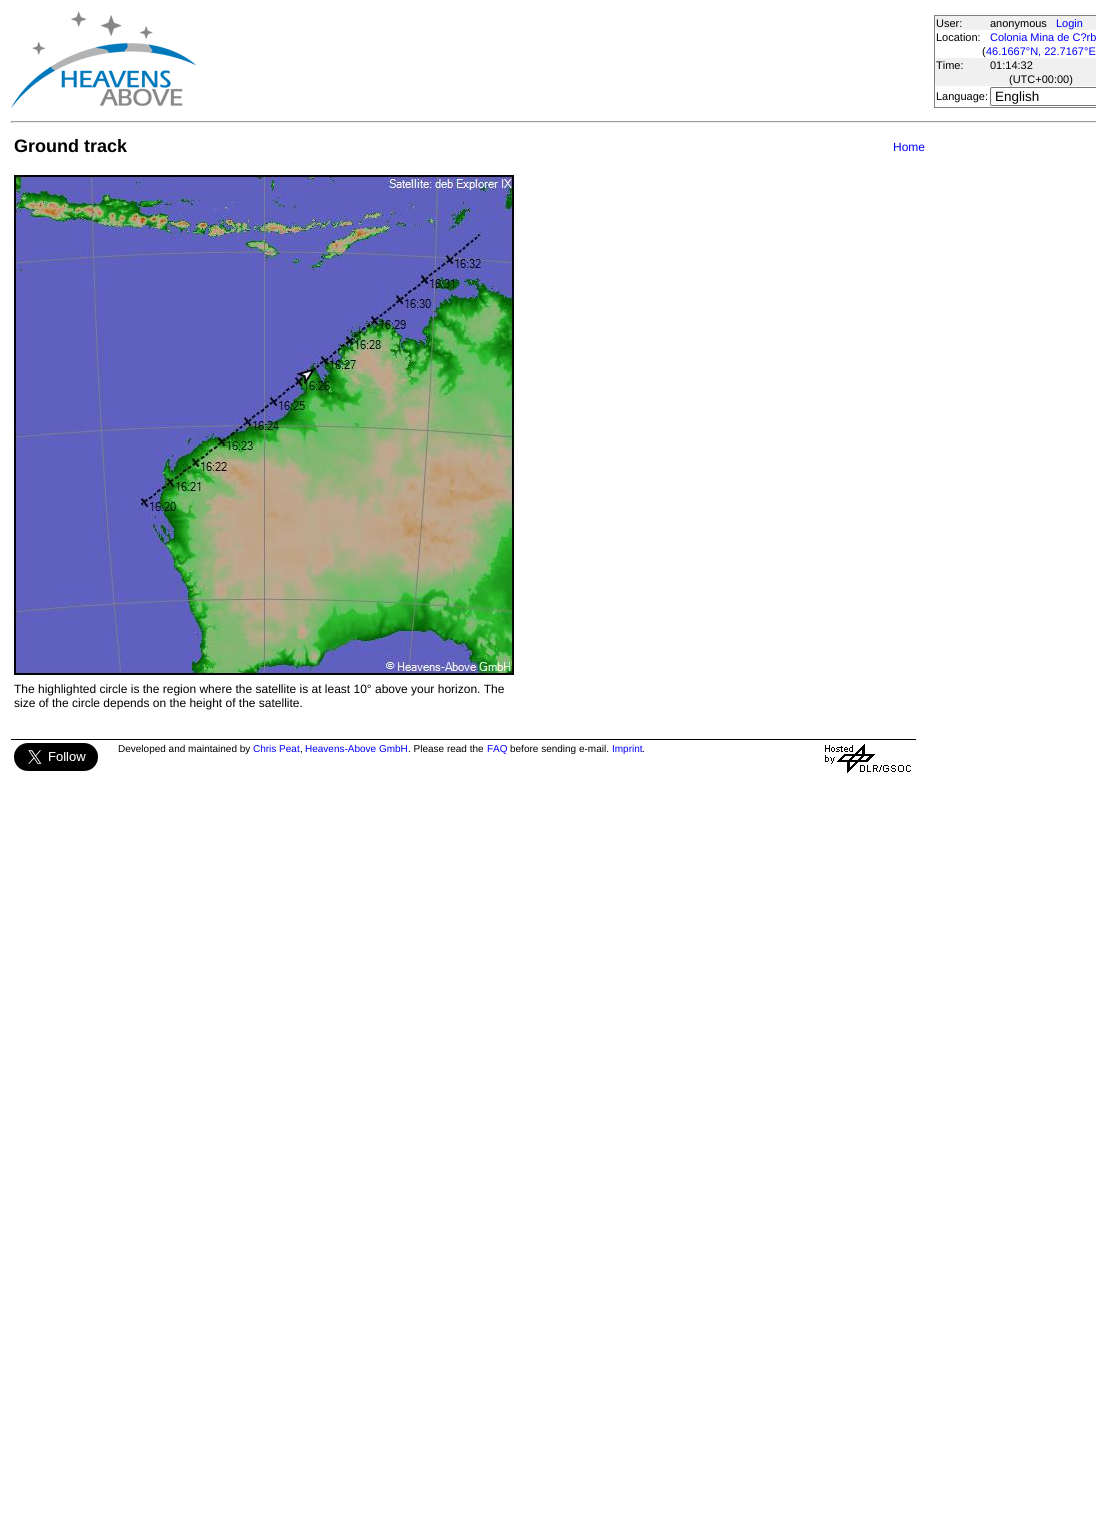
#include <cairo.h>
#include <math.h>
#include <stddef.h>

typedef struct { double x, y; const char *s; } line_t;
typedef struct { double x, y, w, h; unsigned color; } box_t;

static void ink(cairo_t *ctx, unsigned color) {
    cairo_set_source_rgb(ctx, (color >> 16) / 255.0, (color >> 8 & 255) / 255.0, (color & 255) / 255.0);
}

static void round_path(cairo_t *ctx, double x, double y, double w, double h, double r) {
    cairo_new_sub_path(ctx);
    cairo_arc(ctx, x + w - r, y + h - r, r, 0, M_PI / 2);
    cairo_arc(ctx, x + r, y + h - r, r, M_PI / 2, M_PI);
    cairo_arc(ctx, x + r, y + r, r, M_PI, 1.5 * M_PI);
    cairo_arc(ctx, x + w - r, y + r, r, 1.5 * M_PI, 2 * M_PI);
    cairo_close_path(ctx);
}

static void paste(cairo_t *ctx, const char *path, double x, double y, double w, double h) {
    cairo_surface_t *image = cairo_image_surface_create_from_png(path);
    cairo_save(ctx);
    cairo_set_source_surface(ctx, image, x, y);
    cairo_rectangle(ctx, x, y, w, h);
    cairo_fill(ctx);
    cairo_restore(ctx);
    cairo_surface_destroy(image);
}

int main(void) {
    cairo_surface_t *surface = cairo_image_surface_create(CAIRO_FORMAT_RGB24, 1096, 1517);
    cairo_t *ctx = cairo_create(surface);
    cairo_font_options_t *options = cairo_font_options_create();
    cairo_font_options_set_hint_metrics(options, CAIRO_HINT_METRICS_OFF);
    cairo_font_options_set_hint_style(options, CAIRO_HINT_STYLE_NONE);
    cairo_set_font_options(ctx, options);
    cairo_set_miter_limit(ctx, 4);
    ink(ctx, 0xFFFFFF);
    cairo_paint(ctx);
    paste(ctx, "media/1.png", 11, 11, 185, 97);
    {
        static const box_t items[] = {
            {935, 16, 161, 70, 0xF0F0F0},
            {934, 15, 162, 1, 0x808080},
            {934, 107, 162, 1, 0x808080},
            {934, 15, 1, 93, 0x808080},
        };
        for (size_t i = 0; i < sizeof items / sizeof *items; i++) {
            ink(ctx, items[i].color);
            cairo_rectangle(ctx, items[i].x, items[i].y, items[i].w, items[i].h);
            cairo_fill(ctx);
        }
    }
    cairo_select_font_face(ctx, "Liberation Sans", CAIRO_FONT_SLANT_NORMAL, CAIRO_FONT_WEIGHT_NORMAL);
    cairo_set_font_size(ctx, 11);
    ink(ctx, 0x000000);
    cairo_move_to(ctx, 936, 27);
    cairo_show_text(ctx, "User:");
    cairo_move_to(ctx, 990, 27);
    cairo_show_text(ctx, "anonymous");
    ink(ctx, 0x0000FF);
    cairo_move_to(ctx, 1056, 27);
    cairo_show_text(ctx, "Login");
    ink(ctx, 0xFFFFFF);
    cairo_rectangle(ctx, 935, 30, 161, 28);
    cairo_fill(ctx);
    ink(ctx, 0x000000);
    cairo_move_to(ctx, 936, 41);
    cairo_show_text(ctx, "Location:");
    ink(ctx, 0x0000FF);
    cairo_move_to(ctx, 990, 41);
    cairo_show_text(ctx, "Colonia Mina de C?rb");
    ink(ctx, 0x000000);
    cairo_move_to(ctx, 982, 55);
    cairo_show_text(ctx, "(");
    ink(ctx, 0x0000FF);
    cairo_move_to(ctx, 986, 55);
    cairo_show_text(ctx, "46.1667°N, 22.7167°E");
    ink(ctx, 0x000000);
    {
        static const line_t items[] = {
            {936, 69, "Time:"},
            {990, 69, "01:14:32"},
            {1009, 83, "(UTC+00:00)"},
            {936, 100, "Language:"},
        };
        for (size_t i = 0; i < sizeof items / sizeof *items; i++) {
            cairo_move_to(ctx, items[i].x, items[i].y);
            cairo_show_text(ctx, items[i].s);
        }
    }
    round_path(ctx, 990.5, 87.5, 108, 18, 1.5);
    ink(ctx, 0x767676);
    cairo_set_line_width(ctx, 1);
    cairo_stroke(ctx);
    cairo_set_font_size(ctx, 13.5);
    ink(ctx, 0x000000);
    cairo_move_to(ctx, 995, 101);
    cairo_show_text(ctx, "English");
    {
        static const box_t items[] = {
            {11, 121, 1085, 1, 0x9F9F9F},
            {11, 122, 1085, 1, 0xEEEEEE},
            {11, 121, 1, 2, 0x9F9F9F},
        };
        for (size_t i = 0; i < sizeof items / sizeof *items; i++) {
            ink(ctx, items[i].color);
            cairo_rectangle(ctx, items[i].x, items[i].y, items[i].w, items[i].h);
            cairo_fill(ctx);
        }
    }
    cairo_select_font_face(ctx, "Liberation Sans", CAIRO_FONT_SLANT_NORMAL, CAIRO_FONT_WEIGHT_BOLD);
    cairo_set_font_size(ctx, 18);
    ink(ctx, 0x000000);
    cairo_move_to(ctx, 14, 152);
    cairo_show_text(ctx, "Ground track");
    cairo_select_font_face(ctx, "Liberation Sans", CAIRO_FONT_SLANT_NORMAL, CAIRO_FONT_WEIGHT_NORMAL);
    cairo_set_font_size(ctx, 12);
    ink(ctx, 0x0000FF);
    cairo_move_to(ctx, 893, 151);
    cairo_show_text(ctx, "Home");
    paste(ctx, "media/2.png", 14, 175, 500, 500);
    ink(ctx, 0x000000);
    cairo_move_to(ctx, 14, 693);
    cairo_show_text(ctx, "The highlighted circle is the region where the satellite is at least 10° above your horizon. The");
    cairo_move_to(ctx, 14, 707);
    cairo_show_text(ctx, "size of the circle depends on the height of the satellite.");
    cairo_rectangle(ctx, 11, 739, 905, 1);
    cairo_fill(ctx);
    paste(ctx, "media/3.png", 14, 743, 84, 28);
    cairo_set_font_size(ctx, 10);
    cairo_move_to(ctx, 118, 752);
    cairo_show_text(ctx, "Developed and maintained by");
    ink(ctx, 0x0000FF);
    cairo_move_to(ctx, 253, 752);
    cairo_show_text(ctx, "Chris Peat");
    ink(ctx, 0x000000);
    cairo_move_to(ctx, 300, 752);
    cairo_show_text(ctx, ",");
    ink(ctx, 0x0000FF);
    cairo_move_to(ctx, 305, 752);
    cairo_show_text(ctx, "Heavens-Above GmbH");
    ink(ctx, 0x000000);
    cairo_move_to(ctx, 408, 752);
    cairo_show_text(ctx, ". Please read the");
    ink(ctx, 0x0000FF);
    cairo_move_to(ctx, 487, 752);
    cairo_show_text(ctx, "FAQ");
    ink(ctx, 0x000000);
    cairo_move_to(ctx, 510, 752);
    cairo_show_text(ctx, "before sending e-mail.");
    ink(ctx, 0x0000FF);
    cairo_move_to(ctx, 612, 752);
    cairo_show_text(ctx, "Imprint");
    ink(ctx, 0x000000);
    cairo_move_to(ctx, 642, 752);
    cairo_show_text(ctx, ".");
    paste(ctx, "media/4.png", 825, 744, 86, 29);
    cairo_surface_write_to_png(surface, "image.png");
    cairo_font_options_destroy(options);
    cairo_destroy(ctx);
    cairo_surface_destroy(surface);
    return 0;
}
